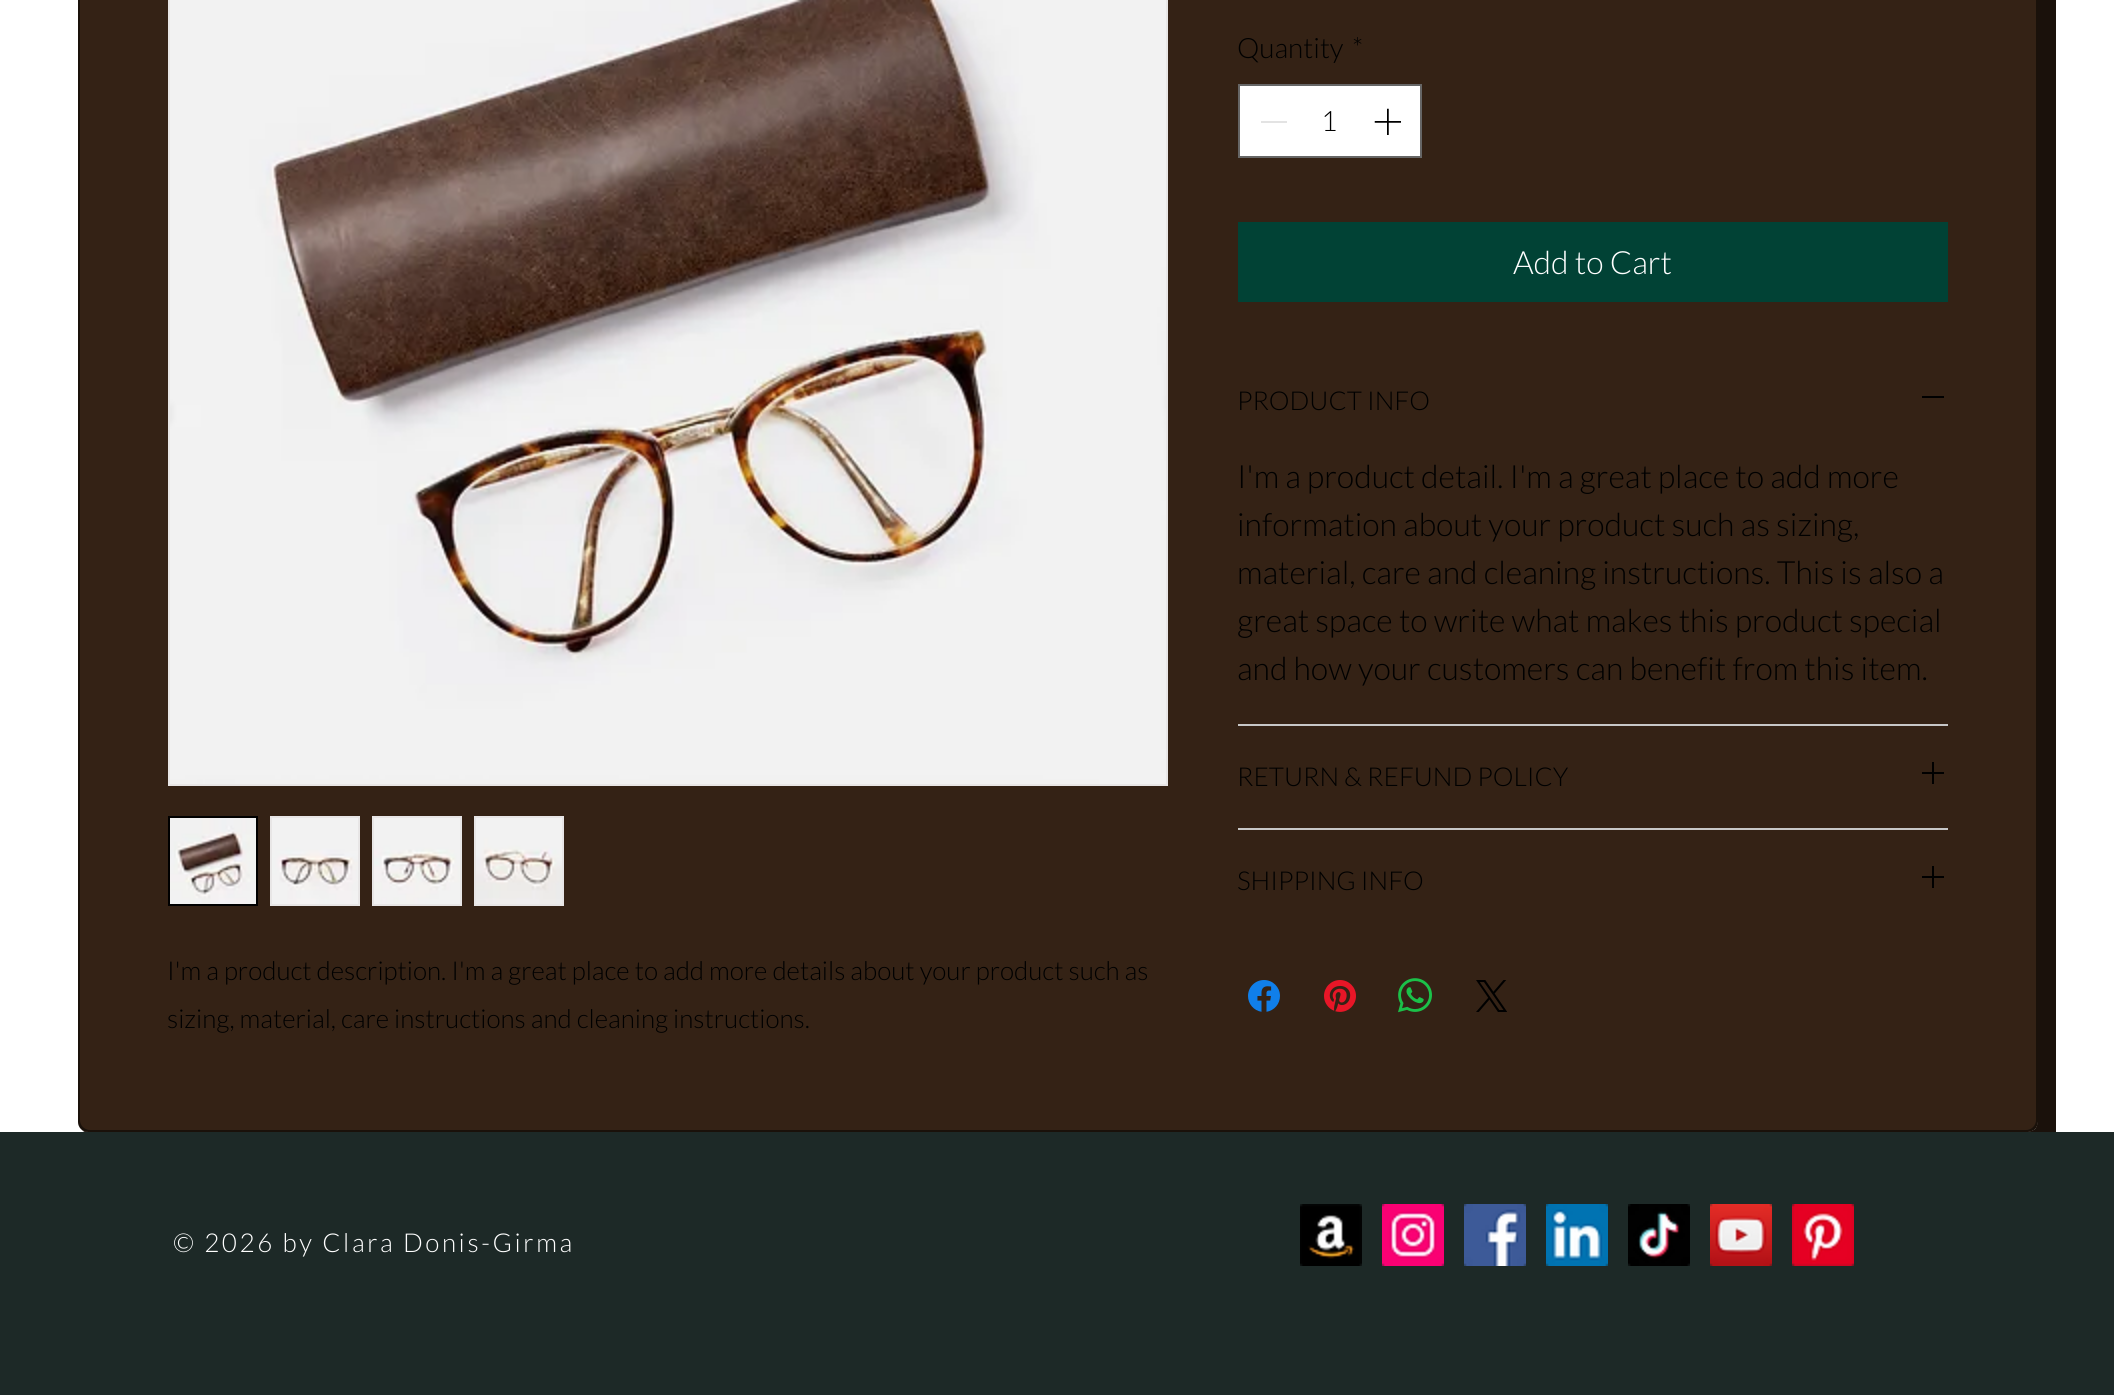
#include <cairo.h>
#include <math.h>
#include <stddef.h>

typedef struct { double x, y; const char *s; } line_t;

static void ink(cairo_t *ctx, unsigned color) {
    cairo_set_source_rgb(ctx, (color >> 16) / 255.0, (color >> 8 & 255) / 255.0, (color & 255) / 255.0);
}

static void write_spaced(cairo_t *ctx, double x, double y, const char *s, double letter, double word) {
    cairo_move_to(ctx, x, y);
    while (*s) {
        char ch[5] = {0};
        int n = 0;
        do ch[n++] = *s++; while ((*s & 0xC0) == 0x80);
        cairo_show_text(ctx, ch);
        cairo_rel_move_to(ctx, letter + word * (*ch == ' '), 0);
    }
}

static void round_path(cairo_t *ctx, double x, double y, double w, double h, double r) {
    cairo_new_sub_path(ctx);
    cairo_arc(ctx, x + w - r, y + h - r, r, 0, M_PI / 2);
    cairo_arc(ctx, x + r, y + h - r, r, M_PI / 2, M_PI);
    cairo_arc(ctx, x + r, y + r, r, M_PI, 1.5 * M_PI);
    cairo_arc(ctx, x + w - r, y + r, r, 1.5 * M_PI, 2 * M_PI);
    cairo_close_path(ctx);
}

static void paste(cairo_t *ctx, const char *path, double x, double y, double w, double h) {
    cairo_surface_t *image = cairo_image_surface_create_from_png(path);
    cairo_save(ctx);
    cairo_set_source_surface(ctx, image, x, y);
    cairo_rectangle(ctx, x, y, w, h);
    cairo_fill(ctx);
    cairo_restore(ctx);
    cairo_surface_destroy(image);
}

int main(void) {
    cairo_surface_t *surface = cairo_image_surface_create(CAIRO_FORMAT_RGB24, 2114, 1395);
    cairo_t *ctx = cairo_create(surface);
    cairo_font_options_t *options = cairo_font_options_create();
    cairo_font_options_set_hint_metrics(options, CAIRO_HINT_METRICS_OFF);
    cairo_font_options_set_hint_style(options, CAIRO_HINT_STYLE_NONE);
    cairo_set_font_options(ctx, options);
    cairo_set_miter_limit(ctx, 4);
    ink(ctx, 0xFFFFFF);
    cairo_paint(ctx);
    ink(ctx, 0x1A110B);
    cairo_new_path(ctx);
    cairo_move_to(ctx, 96, 1132);
    cairo_line_to(ctx, 96, 1140);
    cairo_curve_to(ctx, 96, 1146, 100, 1150, 106, 1150);
    cairo_line_to(ctx, 2046, 1150);
    cairo_curve_to(ctx, 2052, 1150, 2056, 1146, 2056, 1140);
    cairo_line_to(ctx, 2056, -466);
    cairo_curve_to(ctx, 2056, -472, 2052, -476, 2046, -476);
    cairo_line_to(ctx, 2038, -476);
    cairo_line_to(ctx, 2038, 1122);
    cairo_curve_to(ctx, 2038, 1128, 2034, 1132, 2028, 1132);
    cairo_close_path(ctx);
    cairo_fill(ctx);
    cairo_new_path(ctx);
    cairo_move_to(ctx, 92, 1132);
    cairo_line_to(ctx, 92, 1136);
    cairo_curve_to(ctx, 92, 1142, 96, 1146, 102, 1146);
    cairo_line_to(ctx, 2042, 1146);
    cairo_curve_to(ctx, 2048, 1146, 2052, 1142, 2052, 1136);
    cairo_line_to(ctx, 2052, -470);
    cairo_curve_to(ctx, 2052, -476, 2048, -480, 2042, -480);
    cairo_line_to(ctx, 2038, -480);
    cairo_line_to(ctx, 2038, 1122);
    cairo_curve_to(ctx, 2038, 1128, 2034, 1132, 2028, 1132);
    cairo_close_path(ctx);
    cairo_fill(ctx);
    cairo_new_path(ctx);
    cairo_move_to(ctx, 88, 1132);
    cairo_curve_to(ctx, 88, 1138, 92, 1142, 98, 1142);
    cairo_line_to(ctx, 2038, 1142);
    cairo_curve_to(ctx, 2044, 1142, 2048, 1138, 2048, 1132);
    cairo_line_to(ctx, 2048, -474);
    cairo_curve_to(ctx, 2048, -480, 2044, -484, 2038, -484);
    cairo_line_to(ctx, 2038, 1122);
    cairo_curve_to(ctx, 2038, 1128, 2034, 1132, 2028, 1132);
    cairo_close_path(ctx);
    cairo_fill(ctx);
    cairo_new_path(ctx);
    cairo_move_to(ctx, 85, 1131);
    cairo_curve_to(ctx, 86, 1135, 90, 1138, 94, 1138);
    cairo_line_to(ctx, 2034, 1138);
    cairo_curve_to(ctx, 2040, 1138, 2044, 1134, 2044, 1128);
    cairo_line_to(ctx, 2044, -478);
    cairo_curve_to(ctx, 2044, -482, 2041, -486, 2037, -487);
    cairo_line_to(ctx, 2038, -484);
    cairo_line_to(ctx, 2038, 1122);
    cairo_curve_to(ctx, 2038, 1128, 2034, 1132, 2028, 1132);
    cairo_line_to(ctx, 88, 1132);
    cairo_close_path(ctx);
    cairo_fill(ctx);
    cairo_new_path(ctx);
    cairo_move_to(ctx, 82, 1130);
    cairo_curve_to(ctx, 84, 1132, 87, 1134, 90, 1134);
    cairo_line_to(ctx, 2030, 1134);
    cairo_curve_to(ctx, 2036, 1134, 2040, 1130, 2040, 1124);
    cairo_line_to(ctx, 2040, -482);
    cairo_curve_to(ctx, 2040, -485, 2038, -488, 2036, -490);
    cairo_curve_to(ctx, 2037, -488, 2038, -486, 2038, -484);
    cairo_line_to(ctx, 2038, 1122);
    cairo_curve_to(ctx, 2038, 1128, 2034, 1132, 2028, 1132);
    cairo_line_to(ctx, 88, 1132);
    cairo_curve_to(ctx, 86, 1132, 84, 1131, 82, 1130);
    cairo_close_path(ctx);
    cairo_fill(ctx);
    ink(ctx, 0x1A110A);
    round_path(ctx, 78, -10, 1960, 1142, 10);
    cairo_fill(ctx);
    ink(ctx, 0x342215);
    round_path(ctx, 80, -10, 1956, 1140, 10);
    cairo_fill(ctx);
    cairo_select_font_face(ctx, "Lato Light", CAIRO_FONT_SLANT_NORMAL, CAIRO_FONT_WEIGHT_NORMAL);
    cairo_set_font_size(ctx, 28);
    ink(ctx, 0x000000);
    cairo_move_to(ctx, 1237, 58);
    cairo_show_text(ctx, "Quantity");
    cairo_move_to(ctx, 1352, 58);
    cairo_show_text(ctx, "*");
    ink(ctx, 0xFFFFFF);
    cairo_rectangle(ctx, 1239, 85, 182, 72);
    cairo_fill_preserve(ctx);
    ink(ctx, 0x666666);
    cairo_stroke(ctx);
    ink(ctx, 0xE3E3E3);
    cairo_rectangle(ctx, 1261, 121, 26, 2);
    cairo_fill(ctx);
    ink(ctx, 0x000000);
    cairo_move_to(ctx, 1321, 131);
    cairo_show_text(ctx, "1");
    paste(ctx, "media/1.png", 1374, 108, 27, 27);
    ink(ctx, 0x014235);
    cairo_rectangle(ctx, 1238, 222, 710, 80);
    cairo_fill(ctx);
    cairo_set_font_size(ctx, 32);
    ink(ctx, 0xFFFFFF);
    cairo_move_to(ctx, 1513, 274);
    cairo_show_text(ctx, "Add to Cart");
    ink(ctx, 0xC7C7C7);
    cairo_rectangle(ctx, 1238, 724, 710, 2);
    cairo_fill(ctx);
    cairo_set_font_size(ctx, 26);
    ink(ctx, 0x000000);
    cairo_move_to(ctx, 1237, 410);
    cairo_show_text(ctx, "PRODUCT INFO");
    cairo_rectangle(ctx, 1922, 396, 22, 2);
    cairo_fill(ctx);
    cairo_set_font_size(ctx, 32);
    {
        static const line_t items[] = {
            {1237, 488, "I'm a product detail. I'm a great place to add more"},
            {1237, 536, "information about your product such as sizing,"},
            {1237, 584, "material, care and cleaning instructions. This is also a"},
            {1237, 632, "great space to write what makes this product special"},
            {1237, 680, "and how your customers can benefit from this item."},
        };
        for (size_t i = 0; i < sizeof items / sizeof *items; i++) {
            cairo_move_to(ctx, items[i].x, items[i].y);
            cairo_show_text(ctx, items[i].s);
        }
    }
    ink(ctx, 0xC7C7C7);
    cairo_rectangle(ctx, 1238, 828, 710, 2);
    cairo_fill(ctx);
    cairo_set_font_size(ctx, 26);
    ink(ctx, 0x000000);
    cairo_move_to(ctx, 1237, 786);
    cairo_show_text(ctx, "RETURN & REFUND POLICY");
    paste(ctx, "media/2.png", 1922, 762, 22, 22);
    cairo_move_to(ctx, 1237, 890);
    cairo_show_text(ctx, "SHIPPING INFO");
    paste(ctx, "media/2.png", 1922, 866, 22, 22);
    paste(ctx, "media/3.png", 1248, 980, 32, 32);
    paste(ctx, "media/4.png", 1324, 980, 32, 32);
    paste(ctx, "media/5.png", 1398, 978, 34, 35);
    paste(ctx, "media/6.png", 1476, 980, 31, 32);
    cairo_rectangle(ctx, 169, -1, 998, 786);
    ink(ctx, 0xE8E6E6);
    cairo_stroke(ctx);
    paste(ctx, "media/7.png", 170, 0, 996, 784);
    cairo_rectangle(ctx, 169, 817, 88, 88);
    ink(ctx, 0x000000);
    cairo_stroke(ctx);
    paste(ctx, "media/8.png", 170, 818, 86, 86);
    ink(ctx, 0xE8E6E6);
    cairo_rectangle(ctx, 270, 816, 90, 90);
    cairo_fill(ctx);
    paste(ctx, "media/9.png", 272, 818, 86, 86);
    cairo_rectangle(ctx, 372, 816, 90, 90);
    cairo_fill(ctx);
    paste(ctx, "media/10.png", 374, 818, 86, 86);
    cairo_rectangle(ctx, 474, 816, 90, 90);
    cairo_fill(ctx);
    paste(ctx, "media/11.png", 476, 818, 86, 86);
    ink(ctx, 0x000000);
    cairo_move_to(ctx, 167, 980);
    cairo_show_text(ctx, "I'm a product description. I'm a great place to add more details about your product such as");
    cairo_move_to(ctx, 167, 1028);
    cairo_show_text(ctx, "sizing, material, care instructions and cleaning instructions.");
    ink(ctx, 0x1D2927);
    cairo_rectangle(ctx, 0, 1132, 2114, 263);
    cairo_fill(ctx);
    ink(ctx, 0xFFFFFF);
    write_spaced(ctx, 173, 1252, "© 2026 by Clara Donis-Girma", 2.6, 0);
    paste(ctx, "media/12.png", 1300, 1204, 62, 62);
    paste(ctx, "media/13.png", 1382, 1204, 62, 62);
    paste(ctx, "media/14.png", 1464, 1204, 62, 62);
    paste(ctx, "media/15.png", 1546, 1204, 62, 62);
    paste(ctx, "media/16.png", 1628, 1204, 62, 62);
    paste(ctx, "media/17.png", 1710, 1204, 62, 62);
    paste(ctx, "media/18.png", 1792, 1204, 62, 62);
    cairo_surface_write_to_png(surface, "image.png");
    cairo_font_options_destroy(options);
    cairo_destroy(ctx);
    cairo_surface_destroy(surface);
    return 0;
}
